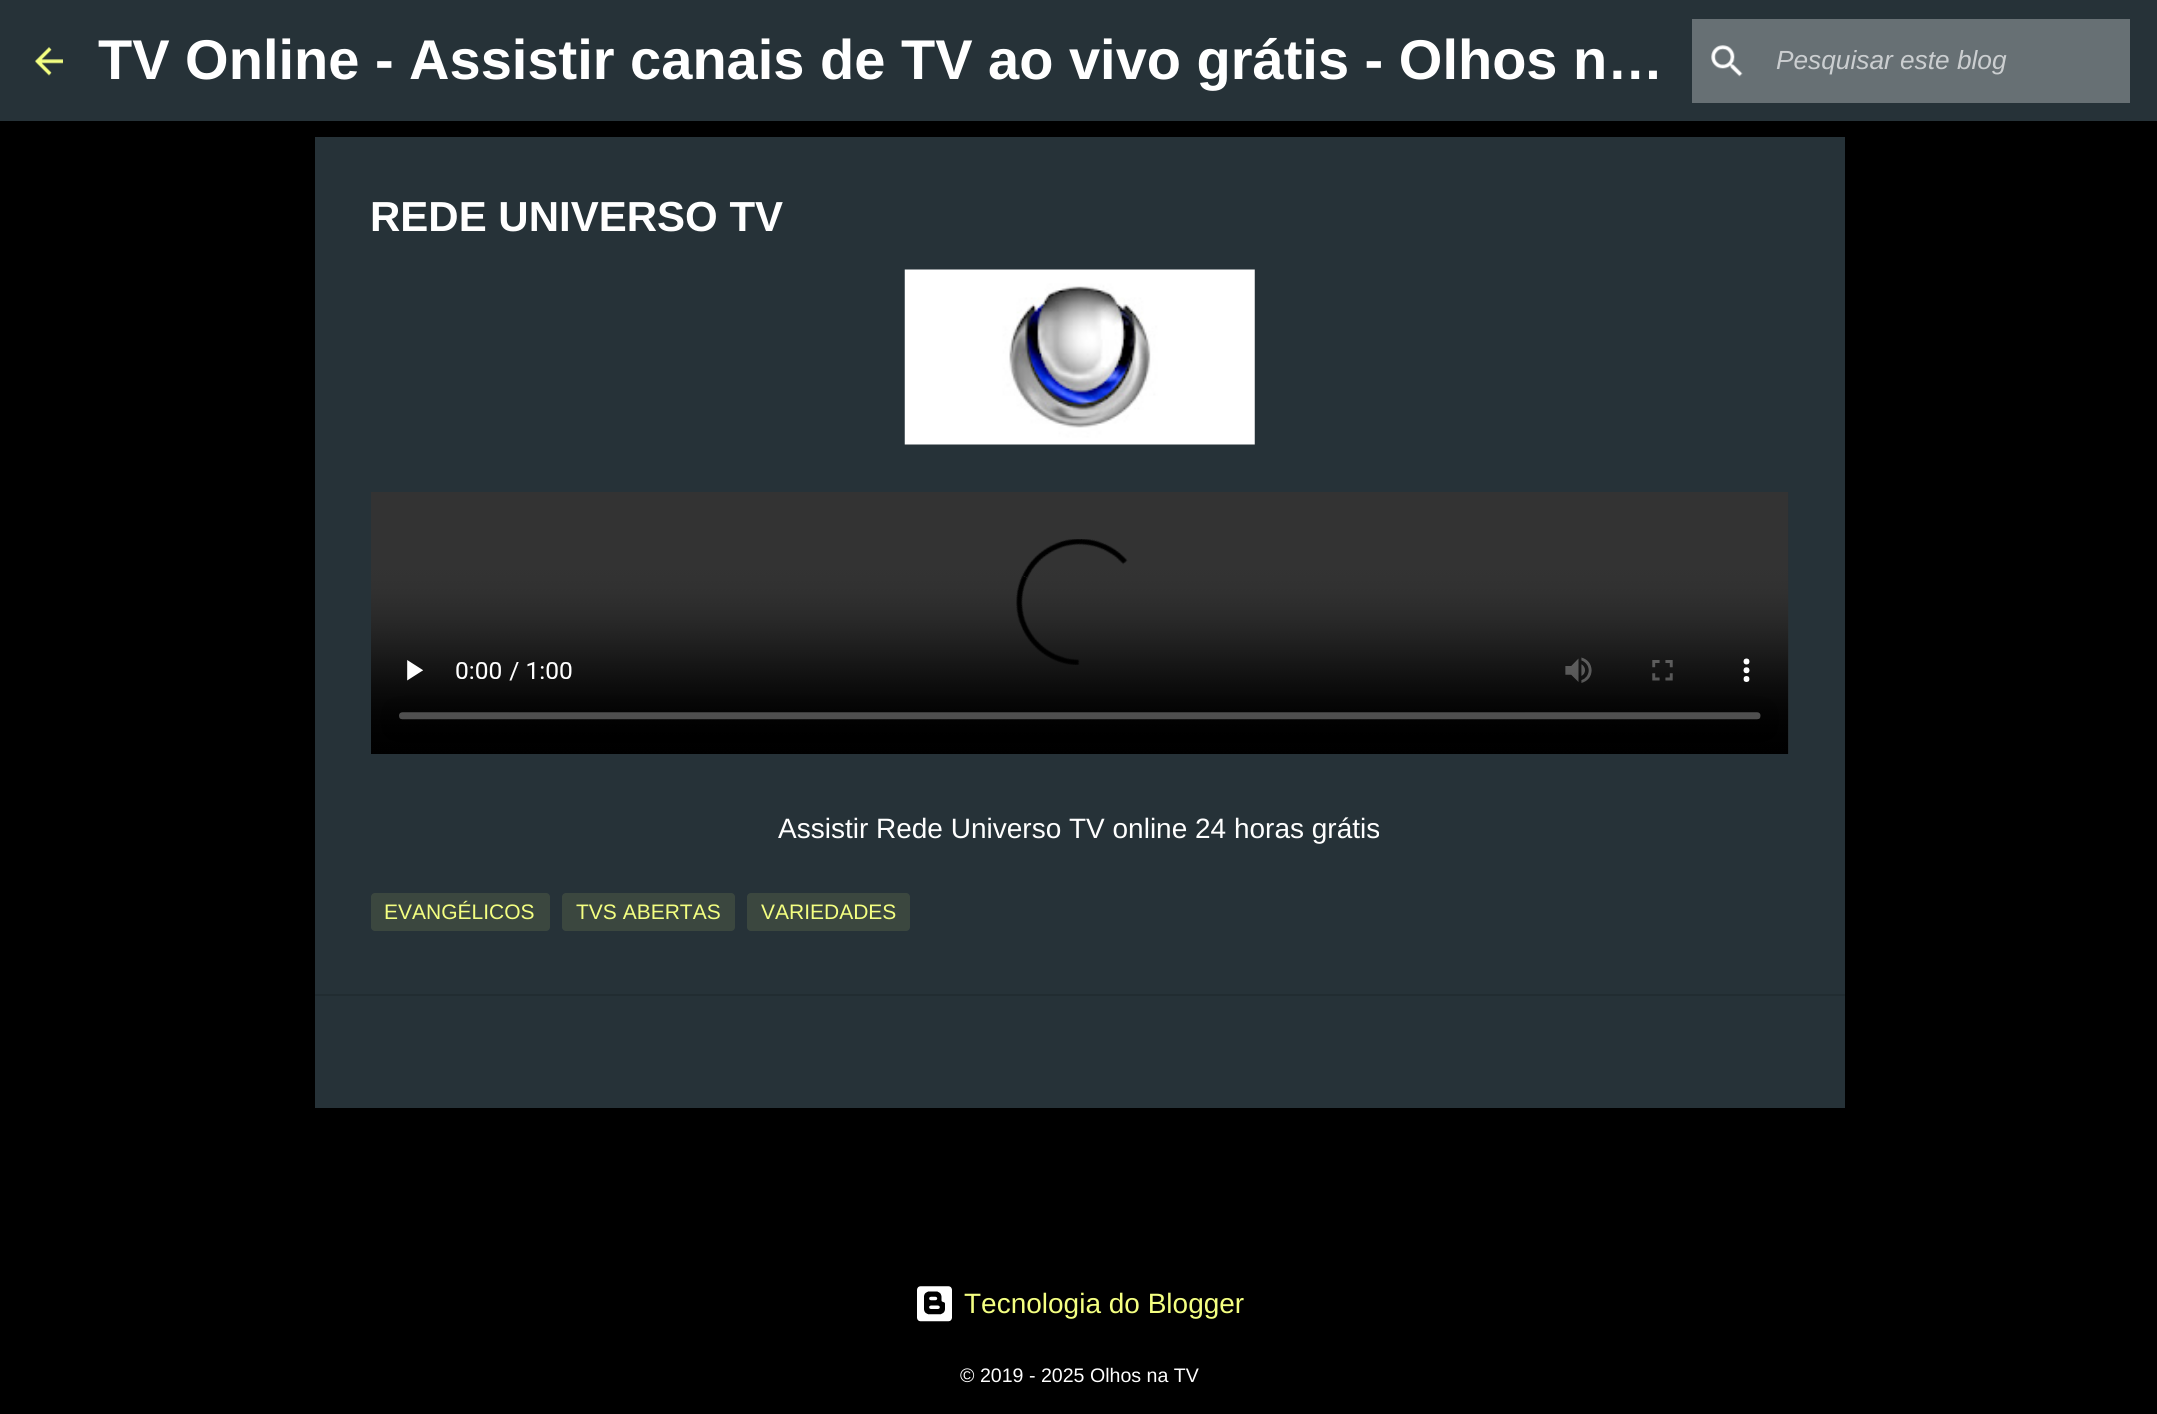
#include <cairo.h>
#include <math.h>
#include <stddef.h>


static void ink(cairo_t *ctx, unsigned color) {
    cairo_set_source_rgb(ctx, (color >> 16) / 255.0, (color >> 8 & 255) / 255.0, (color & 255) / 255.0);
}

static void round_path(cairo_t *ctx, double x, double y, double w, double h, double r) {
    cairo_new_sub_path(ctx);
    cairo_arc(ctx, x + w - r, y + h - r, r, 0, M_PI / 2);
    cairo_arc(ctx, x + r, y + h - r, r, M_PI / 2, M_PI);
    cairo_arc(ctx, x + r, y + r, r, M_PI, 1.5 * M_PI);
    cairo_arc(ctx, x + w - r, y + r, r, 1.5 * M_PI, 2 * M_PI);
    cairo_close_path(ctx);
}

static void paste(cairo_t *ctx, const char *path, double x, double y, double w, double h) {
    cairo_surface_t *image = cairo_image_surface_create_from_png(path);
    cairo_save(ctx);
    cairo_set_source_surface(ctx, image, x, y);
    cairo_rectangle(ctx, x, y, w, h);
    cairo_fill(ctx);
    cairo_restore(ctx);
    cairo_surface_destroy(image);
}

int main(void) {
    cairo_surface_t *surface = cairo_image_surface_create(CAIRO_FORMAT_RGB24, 2157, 1414);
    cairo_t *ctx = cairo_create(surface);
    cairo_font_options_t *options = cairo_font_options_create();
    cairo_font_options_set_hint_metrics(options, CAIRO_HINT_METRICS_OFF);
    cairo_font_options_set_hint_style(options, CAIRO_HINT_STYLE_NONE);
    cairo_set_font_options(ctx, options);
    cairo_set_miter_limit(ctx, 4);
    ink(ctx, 0x000000);
    cairo_paint(ctx);
    ink(ctx, 0x263238);
    cairo_rectangle(ctx, 0, 0, 2157, 121);
    cairo_fill(ctx);
    paste(ctx, "media/1.png", 35, 47, 28, 29);
    cairo_select_font_face(ctx, "Liberation Sans", CAIRO_FONT_SLANT_NORMAL, CAIRO_FONT_WEIGHT_BOLD);
    cairo_set_font_size(ctx, 56);
    ink(ctx, 0xFFFFFF);
    cairo_move_to(ctx, 98, 79);
    cairo_show_text(ctx, "TV Online - Assistir canais de TV ao vivo grátis - Olhos n…");
    ink(ctx, 0x677074);
    cairo_rectangle(ctx, 1692, 19, 438, 84);
    cairo_fill(ctx);
    paste(ctx, "media/2.png", 1711, 45, 32, 32);
    cairo_select_font_face(ctx, "Liberation Sans", CAIRO_FONT_SLANT_ITALIC, CAIRO_FONT_WEIGHT_NORMAL);
    cairo_set_font_size(ctx, 26.25);
    ink(ctx, 0xCBCED0);
    cairo_move_to(ctx, 1776, 69);
    cairo_show_text(ctx, "Pesquisar este blog");
    ink(ctx, 0x263238);
    cairo_rectangle(ctx, 315, 137, 1530, 857);
    cairo_fill(ctx);
    cairo_select_font_face(ctx, "Liberation Sans", CAIRO_FONT_SLANT_NORMAL, CAIRO_FONT_WEIGHT_BOLD);
    cairo_set_font_size(ctx, 42);
    ink(ctx, 0xFFFFFF);
    cairo_move_to(ctx, 370, 231);
    cairo_show_text(ctx, "REDE UNIVERSO TV");
    paste(ctx, "media/3.png", 904, 269, 351, 176);
    paste(ctx, "media/4.png", 371, 492, 1418, 262);
    cairo_select_font_face(ctx, "Liberation Sans", CAIRO_FONT_SLANT_NORMAL, CAIRO_FONT_WEIGHT_NORMAL);
    cairo_set_font_size(ctx, 28);
    cairo_move_to(ctx, 778, 838);
    cairo_show_text(ctx, "Assistir Rede Universo TV online 24 horas grátis");
    ink(ctx, 0x3B473F);
    round_path(ctx, 371, 893, 179, 38, 4);
    cairo_fill(ctx);
    cairo_set_font_size(ctx, 21);
    ink(ctx, 0xF4FF81);
    cairo_move_to(ctx, 384, 919);
    cairo_show_text(ctx, "EVANGÉLICOS");
    ink(ctx, 0x3B473F);
    round_path(ctx, 562, 893, 173, 38, 4);
    cairo_fill(ctx);
    ink(ctx, 0xF4FF81);
    cairo_move_to(ctx, 576, 919);
    cairo_show_text(ctx, "TVS ABERTAS");
    ink(ctx, 0x3B473F);
    round_path(ctx, 747, 893, 163, 38, 4);
    cairo_fill(ctx);
    ink(ctx, 0xF4FF81);
    cairo_move_to(ctx, 761, 919);
    cairo_show_text(ctx, "VARIEDADES");
    ink(ctx, 0x263238);
    cairo_rectangle(ctx, 315, 996, 1530, 112);
    cairo_fill(ctx);
    ink(ctx, 0x212C31);
    cairo_rectangle(ctx, 315, 994, 1530, 2);
    cairo_fill(ctx);
    paste(ctx, "media/5.png", 917, 1286, 35, 36);
    cairo_set_font_size(ctx, 28);
    ink(ctx, 0xF4FF81);
    cairo_move_to(ctx, 964, 1313);
    cairo_show_text(ctx, "Tecnologia do Blogger");
    cairo_set_font_size(ctx, 19.6);
    ink(ctx, 0xFFFFFF);
    cairo_move_to(ctx, 960, 1382);
    cairo_show_text(ctx, "© 2019 - 2025 Olhos na TV");
    cairo_surface_write_to_png(surface, "image.png");
    cairo_font_options_destroy(options);
    cairo_destroy(ctx);
    cairo_surface_destroy(surface);
    return 0;
}
